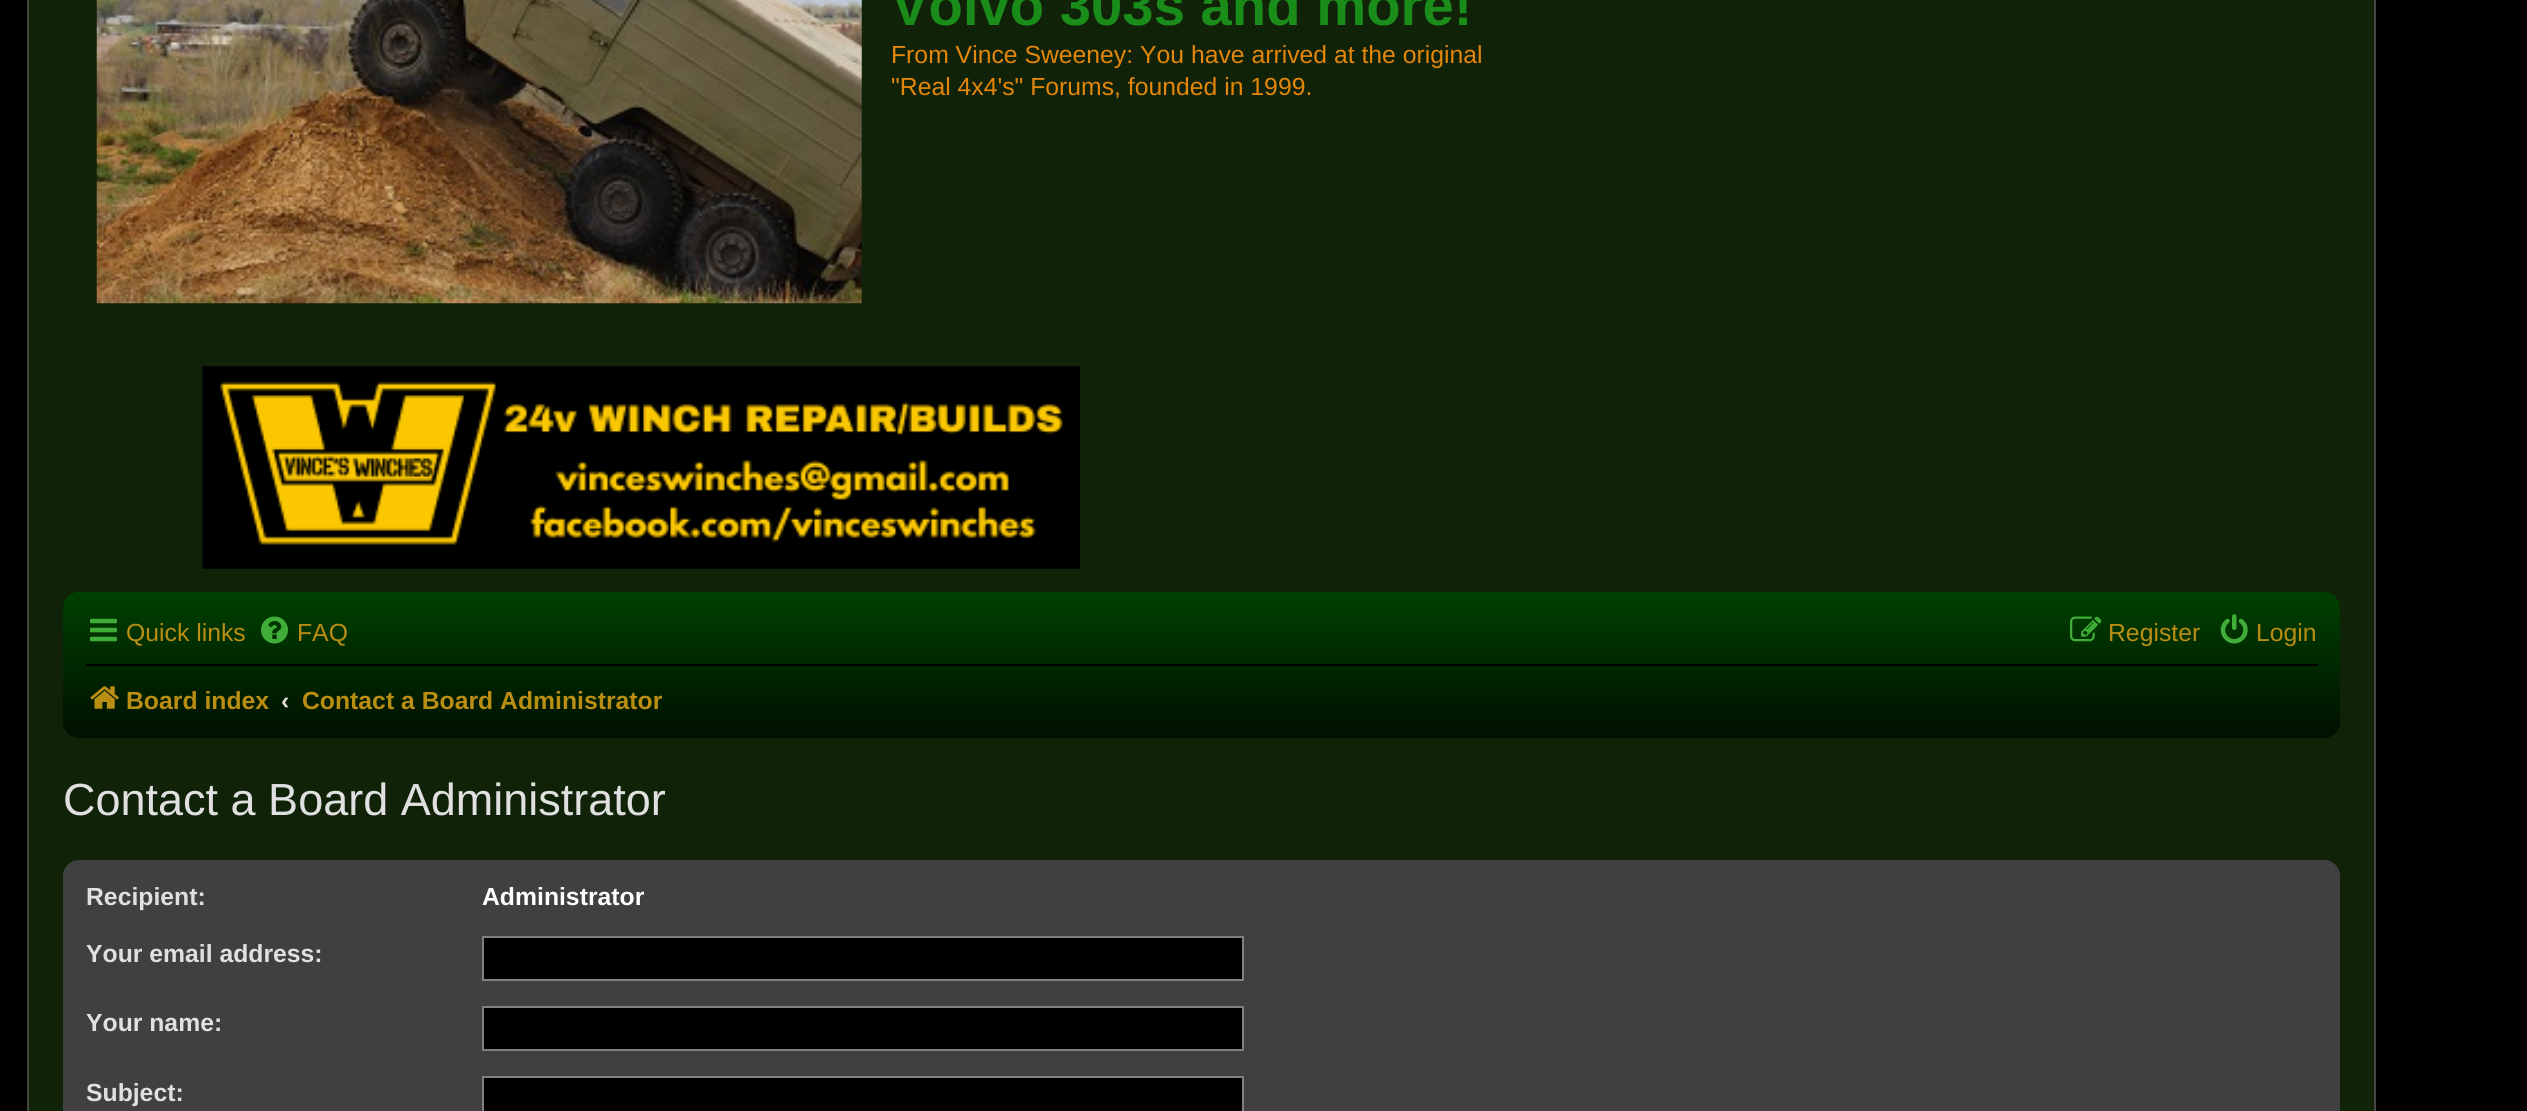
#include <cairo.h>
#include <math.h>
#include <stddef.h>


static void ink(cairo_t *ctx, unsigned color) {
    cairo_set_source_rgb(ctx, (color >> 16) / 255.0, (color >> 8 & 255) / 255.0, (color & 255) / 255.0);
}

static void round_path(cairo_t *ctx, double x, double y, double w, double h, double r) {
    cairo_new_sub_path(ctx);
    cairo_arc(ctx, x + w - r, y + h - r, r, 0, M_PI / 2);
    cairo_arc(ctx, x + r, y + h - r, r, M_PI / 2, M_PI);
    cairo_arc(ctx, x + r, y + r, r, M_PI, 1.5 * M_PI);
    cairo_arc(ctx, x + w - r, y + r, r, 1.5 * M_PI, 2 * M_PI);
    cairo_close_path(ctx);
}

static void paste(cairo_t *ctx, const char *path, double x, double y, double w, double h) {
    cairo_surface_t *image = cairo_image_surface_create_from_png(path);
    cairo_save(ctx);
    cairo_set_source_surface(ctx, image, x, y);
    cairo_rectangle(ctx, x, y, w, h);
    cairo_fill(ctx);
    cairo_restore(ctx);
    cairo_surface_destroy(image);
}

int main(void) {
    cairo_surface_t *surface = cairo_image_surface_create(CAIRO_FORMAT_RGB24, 2527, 1111);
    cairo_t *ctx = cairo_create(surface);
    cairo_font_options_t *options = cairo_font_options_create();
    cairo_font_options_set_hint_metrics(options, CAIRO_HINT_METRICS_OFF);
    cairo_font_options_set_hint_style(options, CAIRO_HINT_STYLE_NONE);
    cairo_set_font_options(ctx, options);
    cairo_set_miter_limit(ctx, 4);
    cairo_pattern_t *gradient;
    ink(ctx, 0x000000);
    cairo_paint(ctx);
    ink(ctx, 0x102208);
    cairo_rectangle(ctx, 28, -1, 2347, 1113);
    cairo_fill_preserve(ctx);
    ink(ctx, 0x454545);
    cairo_stroke(ctx);
    paste(ctx, "media/1.png", 96, 0, 766, 304);
    cairo_select_font_face(ctx, "Liberation Sans", CAIRO_FONT_SLANT_NORMAL, CAIRO_FONT_WEIGHT_BOLD);
    cairo_set_font_size(ctx, 56.25);
    ink(ctx, 0x198C19);
    cairo_move_to(ctx, 891, 25);
    cairo_show_text(ctx, "Volvo 303s and more!");
    cairo_select_font_face(ctx, "Liberation Sans", CAIRO_FONT_SLANT_NORMAL, CAIRO_FONT_WEIGHT_NORMAL);
    cairo_set_font_size(ctx, 24.75);
    ink(ctx, 0xE3860A);
    cairo_move_to(ctx, 891, 63);
    cairo_show_text(ctx, "From Vince Sweeney: You have arrived at the original");
    cairo_move_to(ctx, 891, 95);
    cairo_show_text(ctx, "\"Real 4x4's\" Forums, founded in 1999.");
    paste(ctx, "media/2.png", 202, 366, 878, 203);
    gradient = cairo_pattern_create_linear(1202, 592, 1202, 738);
    cairo_pattern_add_color_stop_rgba(gradient, 0, 0, 0.251, 0, 1);
    cairo_pattern_add_color_stop_rgba(gradient, 1, 0, 0.063, 0, 1);
    cairo_set_source(ctx, gradient);
    cairo_pattern_destroy(gradient);
    round_path(ctx, 63, 592, 2277, 146, 16);
    cairo_fill(ctx);
    paste(ctx, "media/3.png", 90, 618, 27, 24);
    ink(ctx, 0xBA8D13);
    cairo_move_to(ctx, 126, 641);
    cairo_show_text(ctx, "Quick links");
    paste(ctx, "media/4.png", 261, 616, 27, 28);
    cairo_move_to(ctx, 297, 641);
    cairo_show_text(ctx, "FAQ");
    paste(ctx, "media/5.png", 2070, 616, 32, 26);
    cairo_move_to(ctx, 2108, 641);
    cairo_show_text(ctx, "Register");
    paste(ctx, "media/6.png", 2220, 614, 28, 30);
    cairo_move_to(ctx, 2256, 641);
    cairo_show_text(ctx, "Login");
    ink(ctx, 0x000000);
    cairo_rectangle(ctx, 86, 664, 2232, 2);
    cairo_fill(ctx);
    paste(ctx, "media/7.png", 90, 686, 29, 23);
    cairo_select_font_face(ctx, "Liberation Sans", CAIRO_FONT_SLANT_NORMAL, CAIRO_FONT_WEIGHT_BOLD);
    ink(ctx, 0xBA8D13);
    cairo_move_to(ctx, 126, 709);
    cairo_show_text(ctx, "Board index");
    ink(ctx, 0xE0E0E0);
    cairo_move_to(ctx, 281, 709);
    cairo_show_text(ctx, "‹");
    ink(ctx, 0xBA8D13);
    cairo_move_to(ctx, 302, 709);
    cairo_show_text(ctx, "Contact a Board Administrator");
    cairo_select_font_face(ctx, "Liberation Sans", CAIRO_FONT_SLANT_NORMAL, CAIRO_FONT_WEIGHT_NORMAL);
    cairo_set_font_size(ctx, 45);
    ink(ctx, 0xE0E0E0);
    cairo_move_to(ctx, 63, 815);
    cairo_show_text(ctx, "Contact a Board Administrator");
    ink(ctx, 0x404040);
    round_path(ctx, 63, 860, 2277, 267, 16);
    cairo_fill(ctx);
    cairo_select_font_face(ctx, "Liberation Sans", CAIRO_FONT_SLANT_NORMAL, CAIRO_FONT_WEIGHT_BOLD);
    cairo_set_font_size(ctx, 24.75);
    ink(ctx, 0xE0E0E0);
    cairo_move_to(ctx, 86, 905);
    cairo_show_text(ctx, "Recipient:");
    ink(ctx, 0xFFFFFF);
    cairo_move_to(ctx, 482, 905);
    cairo_show_text(ctx, "Administrator");
    ink(ctx, 0xE0E0E0);
    cairo_move_to(ctx, 86, 962);
    cairo_show_text(ctx, "Your email address:");
    ink(ctx, 0x000000);
    cairo_rectangle(ctx, 483, 937, 760, 43);
    cairo_fill_preserve(ctx);
    ink(ctx, 0x808080);
    cairo_stroke(ctx);
    ink(ctx, 0xE0E0E0);
    cairo_move_to(ctx, 86, 1031);
    cairo_show_text(ctx, "Your name:");
    ink(ctx, 0x000000);
    cairo_rectangle(ctx, 483, 1007, 760, 43);
    cairo_fill_preserve(ctx);
    ink(ctx, 0x808080);
    cairo_stroke(ctx);
    ink(ctx, 0xE0E0E0);
    cairo_move_to(ctx, 86, 1101);
    cairo_show_text(ctx, "Subject:");
    ink(ctx, 0x000000);
    cairo_rectangle(ctx, 483, 1077, 760, 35);
    cairo_fill_preserve(ctx);
    ink(ctx, 0x808080);
    cairo_stroke(ctx);
    cairo_surface_write_to_png(surface, "image.png");
    cairo_font_options_destroy(options);
    cairo_destroy(ctx);
    cairo_surface_destroy(surface);
    return 0;
}
